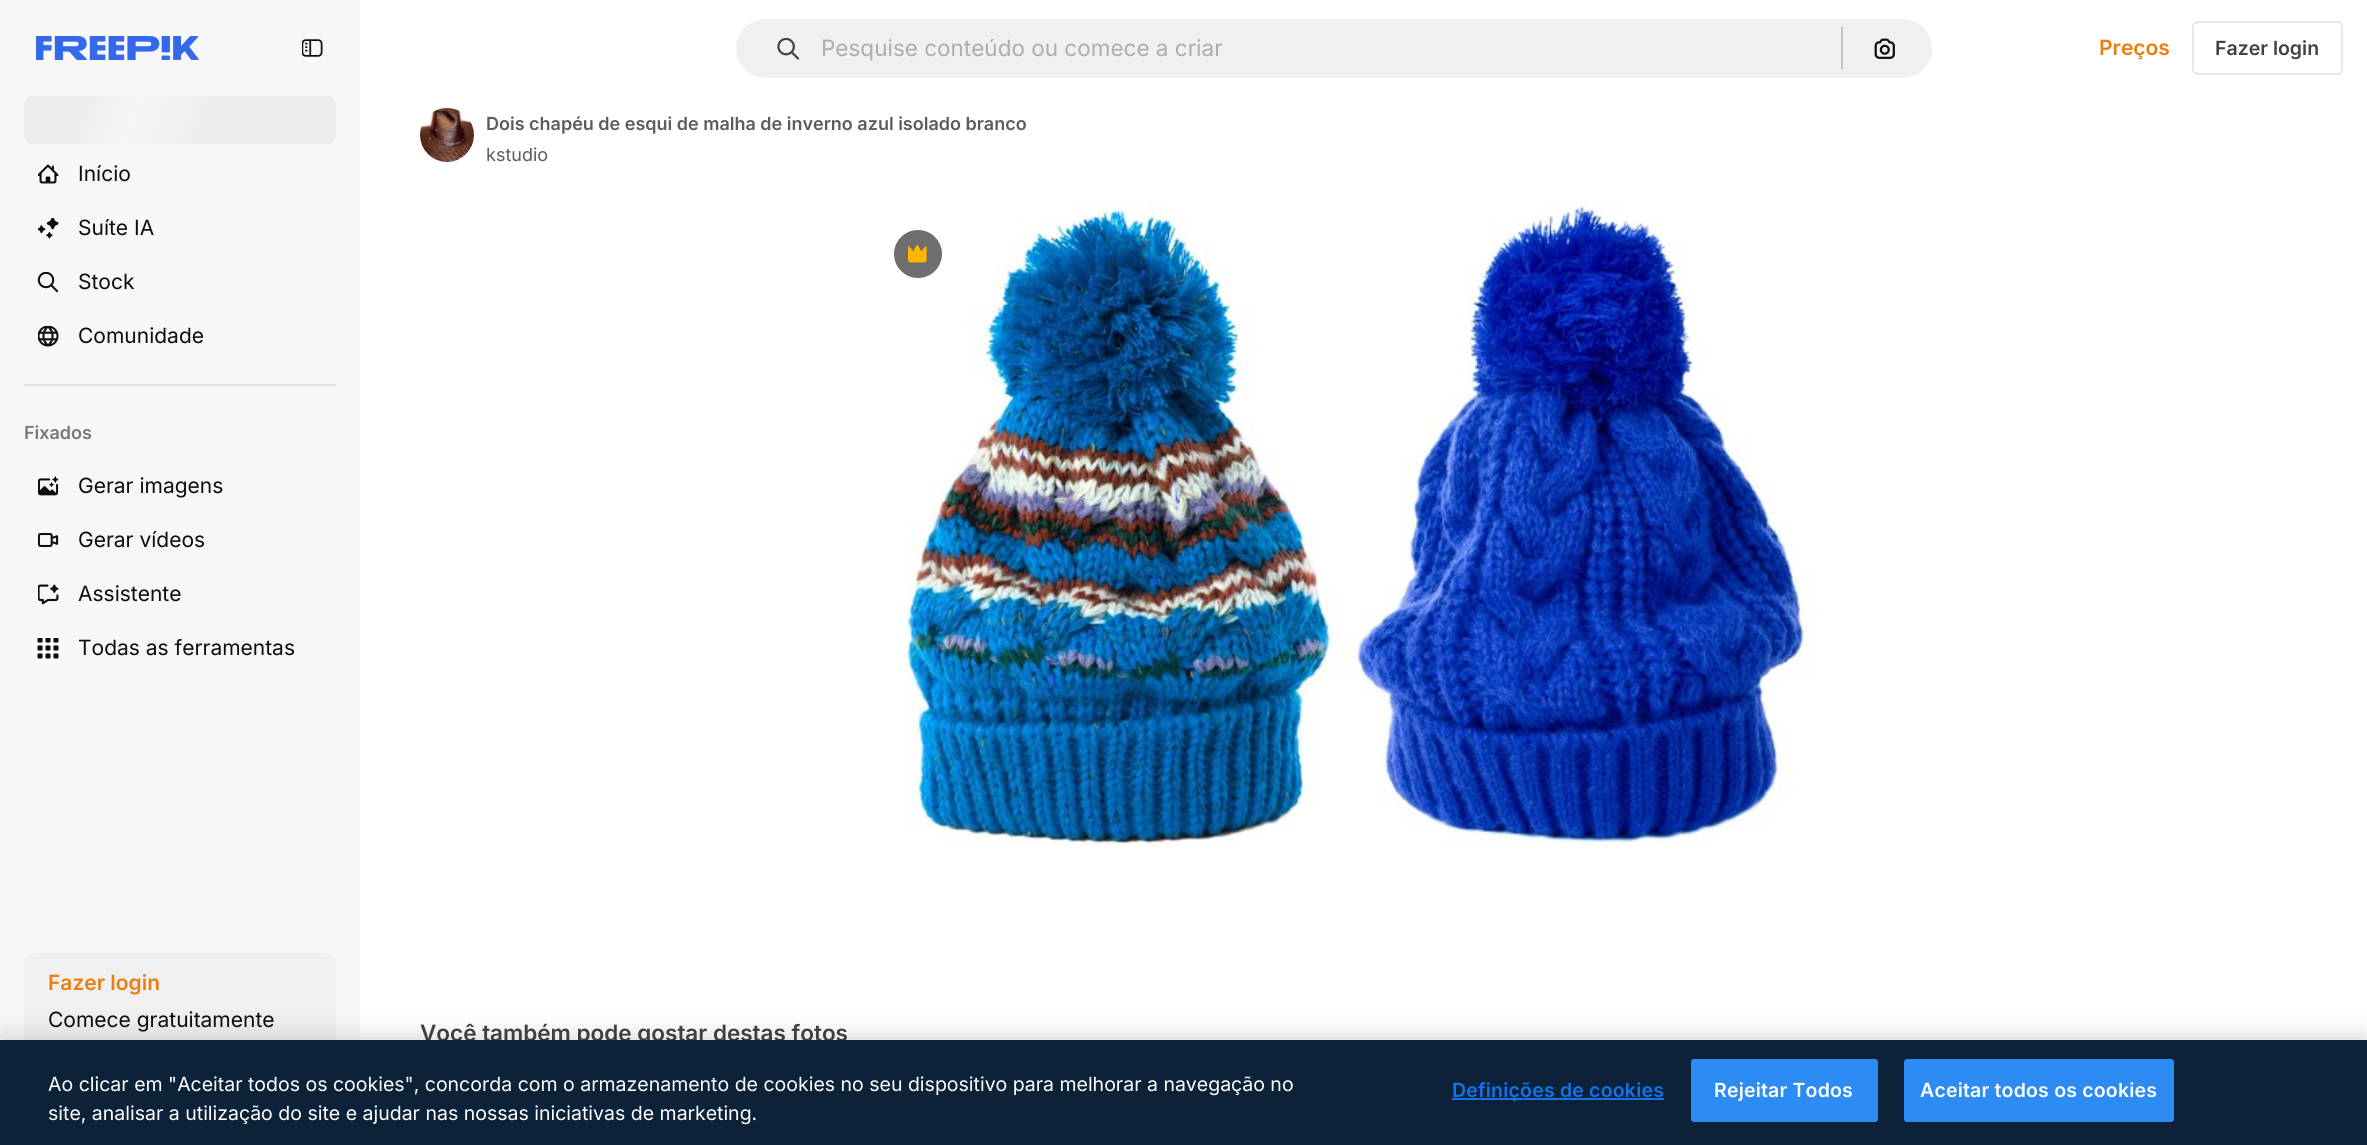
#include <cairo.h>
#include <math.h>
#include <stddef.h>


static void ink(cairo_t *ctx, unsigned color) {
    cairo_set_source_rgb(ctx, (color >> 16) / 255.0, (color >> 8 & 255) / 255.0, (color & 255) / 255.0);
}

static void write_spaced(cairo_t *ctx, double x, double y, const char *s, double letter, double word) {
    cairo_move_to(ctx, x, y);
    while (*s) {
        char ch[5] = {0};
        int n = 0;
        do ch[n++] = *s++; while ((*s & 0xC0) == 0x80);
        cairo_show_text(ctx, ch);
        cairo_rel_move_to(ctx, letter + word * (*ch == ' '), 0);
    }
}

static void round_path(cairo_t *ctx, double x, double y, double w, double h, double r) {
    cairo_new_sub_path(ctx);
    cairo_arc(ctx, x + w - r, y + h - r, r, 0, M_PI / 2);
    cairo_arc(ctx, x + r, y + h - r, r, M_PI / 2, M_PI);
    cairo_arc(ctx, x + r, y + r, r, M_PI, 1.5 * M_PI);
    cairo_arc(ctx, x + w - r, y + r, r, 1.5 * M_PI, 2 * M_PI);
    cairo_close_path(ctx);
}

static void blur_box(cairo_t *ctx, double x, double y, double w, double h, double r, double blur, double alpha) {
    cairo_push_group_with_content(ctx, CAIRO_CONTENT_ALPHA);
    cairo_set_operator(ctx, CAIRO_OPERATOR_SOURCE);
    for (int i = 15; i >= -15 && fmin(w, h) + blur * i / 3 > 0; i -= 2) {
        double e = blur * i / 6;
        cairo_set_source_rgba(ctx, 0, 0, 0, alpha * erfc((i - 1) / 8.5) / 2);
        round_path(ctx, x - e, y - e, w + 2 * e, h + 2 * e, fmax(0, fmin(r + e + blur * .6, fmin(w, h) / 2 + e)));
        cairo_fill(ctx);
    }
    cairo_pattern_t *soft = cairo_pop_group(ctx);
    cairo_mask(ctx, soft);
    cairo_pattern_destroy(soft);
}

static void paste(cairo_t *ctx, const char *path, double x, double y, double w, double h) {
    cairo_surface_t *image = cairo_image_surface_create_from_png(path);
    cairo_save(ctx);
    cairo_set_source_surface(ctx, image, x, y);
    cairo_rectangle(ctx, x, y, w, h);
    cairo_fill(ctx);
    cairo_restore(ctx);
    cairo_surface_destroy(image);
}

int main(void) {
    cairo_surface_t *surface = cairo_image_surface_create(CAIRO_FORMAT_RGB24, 2367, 1145);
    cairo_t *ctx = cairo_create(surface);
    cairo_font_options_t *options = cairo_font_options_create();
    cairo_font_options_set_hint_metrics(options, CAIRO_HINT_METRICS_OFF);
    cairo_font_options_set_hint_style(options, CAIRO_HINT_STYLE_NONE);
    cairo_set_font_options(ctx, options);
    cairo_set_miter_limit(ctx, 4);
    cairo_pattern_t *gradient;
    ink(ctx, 0xFFFFFF);
    cairo_paint(ctx);
    ink(ctx, 0xF7F7F7);
    cairo_rectangle(ctx, 0, 0, 360, 1040);
    cairo_fill(ctx);
    paste(ctx, "media/1.png", 36, 36, 163, 24);
    paste(ctx, "media/2.png", 302, 39, 21, 18);
    gradient = cairo_pattern_create_linear(53, 17, 619, 223);
    cairo_pattern_add_color_stop_rgba(gradient, 0.08, 0.925, 0.925, 0.925, 1);
    cairo_pattern_add_color_stop_rgba(gradient, 0.18, 0.961, 0.961, 0.961, 1);
    cairo_pattern_add_color_stop_rgba(gradient, 0.33, 0.925, 0.925, 0.925, 1);
    cairo_set_source(ctx, gradient);
    cairo_pattern_destroy(gradient);
    round_path(ctx, 24, 96, 312, 48, 9);
    cairo_fill(ctx);
    paste(ctx, "media/3.png", 38, 164, 21, 20);
    cairo_select_font_face(ctx, "Inter", CAIRO_FONT_SLANT_NORMAL, CAIRO_FONT_WEIGHT_NORMAL);
    cairo_set_font_size(ctx, 21);
    ink(ctx, 0x0D0D0D);
    cairo_move_to(ctx, 78, 181);
    cairo_show_text(ctx, "Início");
    paste(ctx, "media/4.png", 38, 218, 21, 21);
    cairo_move_to(ctx, 78, 235);
    cairo_show_text(ctx, "Suíte IA");
    paste(ctx, "media/5.png", 37, 272, 22, 21);
    cairo_move_to(ctx, 78, 289);
    cairo_show_text(ctx, "Stock");
    paste(ctx, "media/6.png", 38, 326, 21, 21);
    cairo_move_to(ctx, 78, 343);
    cairo_show_text(ctx, "Comunidade");
    ink(ctx, 0xE0E0E0);
    cairo_rectangle(ctx, 24, 384, 312, 2);
    cairo_fill(ctx);
    cairo_select_font_face(ctx, "Inter SemiBold", CAIRO_FONT_SLANT_NORMAL, CAIRO_FONT_WEIGHT_NORMAL);
    cairo_set_font_size(ctx, 18);
    ink(ctx, 0x787878);
    cairo_move_to(ctx, 24, 439);
    cairo_show_text(ctx, "Fixados");
    paste(ctx, "media/7.png", 38, 476, 21, 20);
    cairo_select_font_face(ctx, "Inter", CAIRO_FONT_SLANT_NORMAL, CAIRO_FONT_WEIGHT_NORMAL);
    cairo_set_font_size(ctx, 21);
    ink(ctx, 0x0D0D0D);
    cairo_move_to(ctx, 78, 493);
    cairo_show_text(ctx, "Gerar imagens");
    paste(ctx, "media/8.png", 38, 533, 21, 14);
    cairo_move_to(ctx, 78, 547);
    cairo_show_text(ctx, "Gerar vídeos");
    paste(ctx, "media/9.png", 38, 584, 21, 21);
    cairo_move_to(ctx, 78, 601);
    cairo_show_text(ctx, "Assistente");
    paste(ctx, "media/10.png", 37, 638, 22, 21);
    cairo_move_to(ctx, 78, 655);
    cairo_show_text(ctx, "Todas as ferramentas");
    ink(ctx, 0xF0F0F0);
    round_path(ctx, 24, 953, 312, 97, 12);
    cairo_fill(ctx);
    cairo_select_font_face(ctx, "Inter SemiBold", CAIRO_FONT_SLANT_NORMAL, CAIRO_FONT_WEIGHT_NORMAL);
    ink(ctx, 0xEA7E11);
    cairo_move_to(ctx, 48, 990);
    cairo_show_text(ctx, "Fazer login");
    cairo_select_font_face(ctx, "Inter", CAIRO_FONT_SLANT_NORMAL, CAIRO_FONT_WEIGHT_NORMAL);
    ink(ctx, 0x0D0D0D);
    cairo_move_to(ctx, 48, 1027);
    cairo_show_text(ctx, "Comece gratuitamente");
    ink(ctx, 0xF0F0F0);
    round_path(ctx, 735, 18, 1198, 61, 30.5);
    cairo_fill_preserve(ctx);
    ink(ctx, 0xFFFFFF);
    cairo_stroke(ctx);
    paste(ctx, "media/11.png", 777, 38, 23, 22);
    cairo_set_font_size(ctx, 22.5);
    ink(ctx, 0xADADAD);
    cairo_move_to(ctx, 821, 56);
    cairo_show_text(ctx, "Pesquise conteúdo ou comece a criar");
    ink(ctx, 0xC3C3C3);
    cairo_rectangle(ctx, 1841, 27, 2, 42);
    cairo_fill(ctx);
    paste(ctx, "media/12.png", 1874, 38, 21, 21);
    cairo_select_font_face(ctx, "Inter SemiBold", CAIRO_FONT_SLANT_NORMAL, CAIRO_FONT_WEIGHT_NORMAL);
    cairo_set_font_size(ctx, 21);
    ink(ctx, 0xEA7E11);
    cairo_move_to(ctx, 2099, 55);
    cairo_show_text(ctx, "Preços");
    round_path(ctx, 2193, 22, 149, 52, 5);
    ink(ctx, 0xE7E7E7);
    cairo_stroke(ctx);
    cairo_set_font_size(ctx, 19.5);
    ink(ctx, 0x424242);
    cairo_move_to(ctx, 2215, 55);
    cairo_show_text(ctx, "Fazer login");
    paste(ctx, "media/13.png", 420, 108, 54, 54);
    cairo_set_font_size(ctx, 18);
    ink(ctx, 0x5C5C5C);
    cairo_move_to(ctx, 486, 130);
    cairo_show_text(ctx, "Dois chapéu de esqui de malha de inverno azul isolado branco");
    cairo_select_font_face(ctx, "Inter", CAIRO_FONT_SLANT_NORMAL, CAIRO_FONT_WEIGHT_NORMAL);
    cairo_move_to(ctx, 486, 161);
    cairo_show_text(ctx, "kstudio");
    paste(ctx, "media/14.png", 906, 200, 909, 649);
    ink(ctx, 0x6E6E6E);
    cairo_arc(ctx, 918, 254, 24, 0, 2 * M_PI);
    cairo_fill(ctx);
    paste(ctx, "media/15.png", 908, 245, 19, 18);
    cairo_select_font_face(ctx, "Inter SemiBold", CAIRO_FONT_SLANT_NORMAL, CAIRO_FONT_WEIGHT_NORMAL);
    cairo_set_font_size(ctx, 22.5);
    ink(ctx, 0x424242);
    cairo_move_to(ctx, 420, 1041);
    cairo_show_text(ctx, "Você também pode gostar destas fotos");
    ink(ctx, 0x000000);
    blur_box(ctx, 0, 1040, 2367, 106, 0, 13.5, 0.2);
    ink(ctx, 0x0B2239);
    cairo_rectangle(ctx, 0, 1040, 2367, 105);
    cairo_fill(ctx);
    cairo_select_font_face(ctx, "Inter", CAIRO_FONT_SLANT_NORMAL, CAIRO_FONT_WEIGHT_NORMAL);
    cairo_set_font_size(ctx, 19.5);
    ink(ctx, 0xFFFFFF);
    cairo_move_to(ctx, 48, 1091);
    cairo_show_text(ctx, "Ao clicar em \"Aceitar todos os cookies\", concorda com o armazenamento de cookies no seu dispositivo para melhorar a navegação no");
    cairo_move_to(ctx, 48, 1120);
    cairo_show_text(ctx, "site, analisar a utilização do site e ajudar nas nossas iniciativas de marketing.");
    ink(ctx, 0x1273EB);
    cairo_rectangle(ctx, 1452, 1098, 212, 2);
    cairo_fill(ctx);
    cairo_select_font_face(ctx, "Inter SemiBold", CAIRO_FONT_SLANT_NORMAL, CAIRO_FONT_WEIGHT_NORMAL);
    write_spaced(ctx, 1452, 1097, "Definições de cookies", 0.2, 0);
    ink(ctx, 0x2C8CF4);
    round_path(ctx, 1692, 1060, 185, 61, 2);
    cairo_fill_preserve(ctx);
    cairo_stroke(ctx);
    ink(ctx, 0xFFFFFF);
    write_spaced(ctx, 1714, 1097, "Rejeitar Todos", 0.2, 0);
    ink(ctx, 0x2C8CF4);
    round_path(ctx, 1905, 1060, 268, 61, 2);
    cairo_fill_preserve(ctx);
    cairo_stroke(ctx);
    ink(ctx, 0xFFFFFF);
    write_spaced(ctx, 1920, 1097, "Aceitar todos os cookies", 0.2, 0);
    cairo_surface_write_to_png(surface, "image.png");
    cairo_font_options_destroy(options);
    cairo_destroy(ctx);
    cairo_surface_destroy(surface);
    return 0;
}
